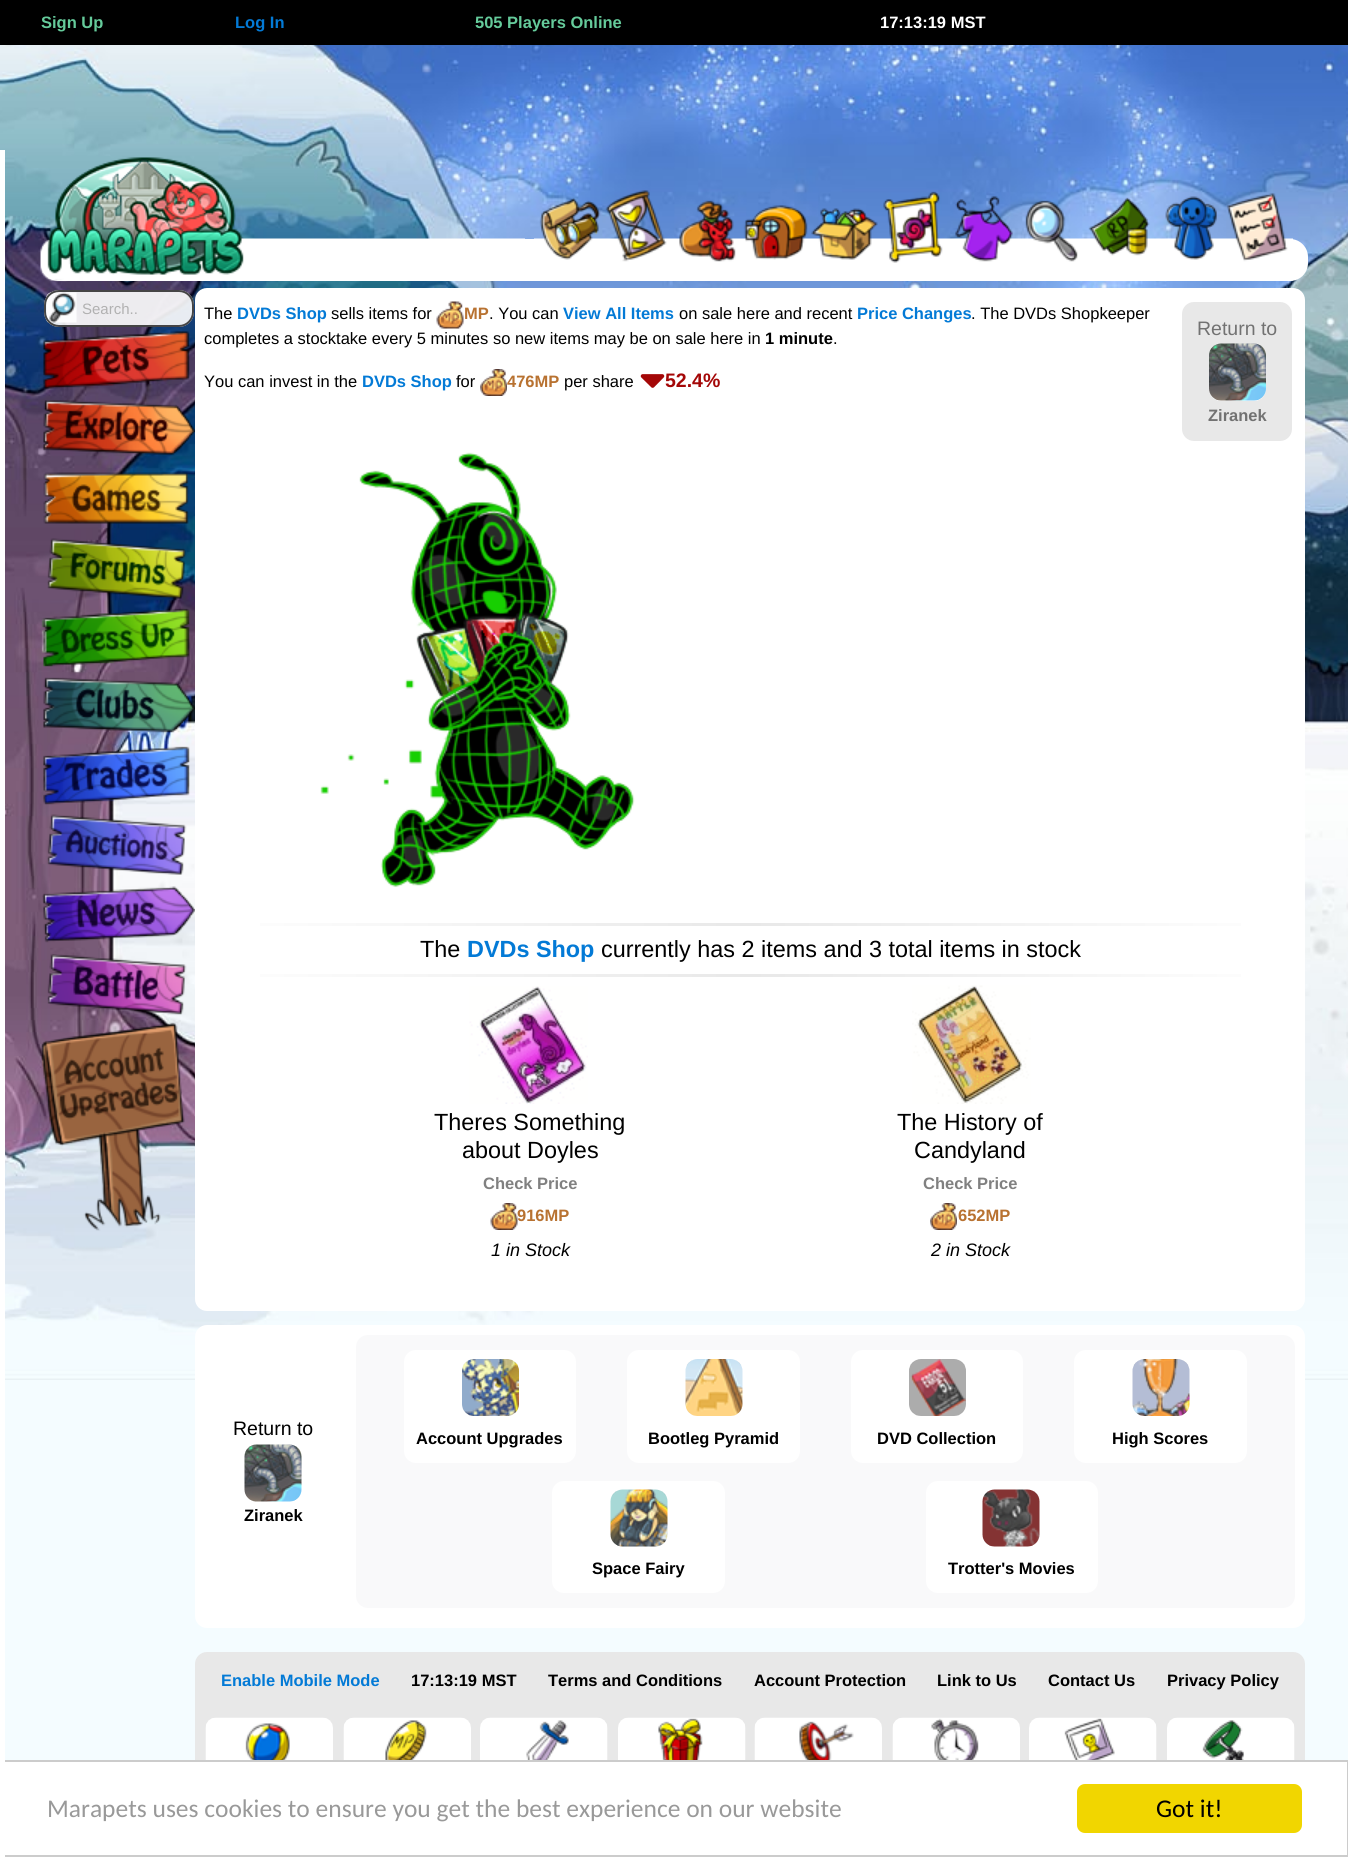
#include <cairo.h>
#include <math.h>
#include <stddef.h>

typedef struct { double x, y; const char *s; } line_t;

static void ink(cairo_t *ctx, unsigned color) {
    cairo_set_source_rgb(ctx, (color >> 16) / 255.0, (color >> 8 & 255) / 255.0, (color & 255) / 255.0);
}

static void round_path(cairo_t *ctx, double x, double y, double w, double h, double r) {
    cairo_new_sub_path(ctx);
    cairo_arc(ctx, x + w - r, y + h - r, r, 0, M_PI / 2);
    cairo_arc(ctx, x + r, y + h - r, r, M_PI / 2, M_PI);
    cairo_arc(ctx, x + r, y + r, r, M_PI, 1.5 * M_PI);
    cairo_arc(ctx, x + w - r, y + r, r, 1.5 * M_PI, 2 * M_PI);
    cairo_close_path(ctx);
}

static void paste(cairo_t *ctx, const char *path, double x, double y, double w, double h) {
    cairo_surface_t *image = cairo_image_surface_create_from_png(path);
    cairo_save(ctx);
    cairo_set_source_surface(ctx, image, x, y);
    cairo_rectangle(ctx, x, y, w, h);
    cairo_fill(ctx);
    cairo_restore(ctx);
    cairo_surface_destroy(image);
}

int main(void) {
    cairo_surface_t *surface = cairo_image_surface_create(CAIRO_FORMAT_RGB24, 1348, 1857);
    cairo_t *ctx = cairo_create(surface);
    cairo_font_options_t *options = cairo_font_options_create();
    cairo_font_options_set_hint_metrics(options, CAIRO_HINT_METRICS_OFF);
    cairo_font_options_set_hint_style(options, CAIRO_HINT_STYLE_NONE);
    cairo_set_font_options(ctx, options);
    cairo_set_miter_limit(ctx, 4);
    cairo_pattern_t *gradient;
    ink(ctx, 0xF4FCFF);
    cairo_paint(ctx);
    paste(ctx, "media/1.png", 0, 45, 1348, 1335);
    ink(ctx, 0x000000);
    cairo_rectangle(ctx, 0, 0, 1348, 45);
    cairo_fill(ctx);
    cairo_select_font_face(ctx, "Liberation Sans", CAIRO_FONT_SLANT_NORMAL, CAIRO_FONT_WEIGHT_BOLD);
    cairo_set_font_size(ctx, 16.5);
    ink(ctx, 0x65CB9B);
    cairo_move_to(ctx, 41, 28);
    cairo_show_text(ctx, "Sign Up");
    ink(ctx, 0x037AD6);
    cairo_move_to(ctx, 235, 28);
    cairo_show_text(ctx, "Log In");
    ink(ctx, 0x65CB9B);
    cairo_move_to(ctx, 475, 28);
    cairo_show_text(ctx, "505 Players Online");
    ink(ctx, 0xFFFFFF);
    cairo_move_to(ctx, 880, 28);
    cairo_show_text(ctx, "17:13:19 MST");
    ink(ctx, 0xE8E8E8);
    round_path(ctx, 198, 1655, 1104, 159, 9);
    cairo_fill_preserve(ctx);
    cairo_set_line_width(ctx, 6);
    cairo_stroke(ctx);
    ink(ctx, 0xFFFFFF);
    cairo_rectangle(ctx, 5, 1762, 1342, 93);
    cairo_fill(ctx);
    cairo_rectangle(ctx, 1, 1761, 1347, 95);
    ink(ctx, 0xCCCCCC);
    cairo_set_line_width(ctx, 2);
    cairo_stroke(ctx);
    ink(ctx, 0xFFFFFF);
    cairo_rectangle(ctx, 0, 150, 5, 1707);
    cairo_fill(ctx);
    round_path(ctx, 41, 239, 1267, 42, 18);
    cairo_fill(ctx);
    paste(ctx, "media/2.png", 40, 157, 485, 125);
    paste(ctx, "media/3.png", 534, 197, 69, 63);
    paste(ctx, "media/4.png", 603, 190, 69, 72);
    paste(ctx, "media/5.png", 672, 200, 69, 62);
    paste(ctx, "media/6.png", 741, 205, 69, 55);
    paste(ctx, "media/7.png", 810, 208, 69, 52);
    paste(ctx, "media/8.png", 879, 191, 69, 72);
    paste(ctx, "media/9.png", 948, 196, 69, 66);
    paste(ctx, "media/10.png", 1017, 200, 69, 62);
    paste(ctx, "media/11.png", 1086, 197, 69, 59);
    paste(ctx, "media/12.png", 1155, 196, 69, 64);
    paste(ctx, "media/13.png", 1224, 193, 69, 88);
    cairo_set_source_rgba(ctx, 1, 1, 1, 0.9);
    round_path(ctx, 44, 290, 150, 37, 15);
    cairo_fill(ctx);
    paste(ctx, "media/14.png", 46, 292, 31, 31);
    round_path(ctx, 45, 291, 148, 35, 14);
    cairo_set_source_rgba(ctx, 0.2, 0.2, 0.2, 0.9);
    cairo_stroke(ctx);
    cairo_select_font_face(ctx, "Liberation Sans", CAIRO_FONT_SLANT_NORMAL, CAIRO_FONT_WEIGHT_NORMAL);
    cairo_set_font_size(ctx, 15);
    ink(ctx, 0xB1B1B1);
    cairo_move_to(ctx, 82, 314);
    cairo_show_text(ctx, "Search..");
    paste(ctx, "media/15.png", 42, 331, 148, 58);
    paste(ctx, "media/16.png", 43, 400, 152, 55);
    paste(ctx, "media/17.png", 43, 472, 146, 52);
    paste(ctx, "media/18.png", 47, 538, 139, 61);
    paste(ctx, "media/19.png", 41, 608, 149, 59);
    paste(ctx, "media/20.png", 43, 677, 152, 56);
    paste(ctx, "media/21.png", 43, 746, 147, 59);
    paste(ctx, "media/22.png", 47, 814, 140, 61);
    paste(ctx, "media/23.png", 42, 886, 153, 57);
    paste(ctx, "media/24.png", 47, 954, 140, 61);
    paste(ctx, "media/25.png", 40, 1022, 145, 209);
    ink(ctx, 0xFFFFFF);
    round_path(ctx, 195, 288, 1110, 1023, 12);
    cairo_fill(ctx);
    cairo_set_font_size(ctx, 16.5);
    ink(ctx, 0x000000);
    cairo_move_to(ctx, 204, 319);
    cairo_show_text(ctx, "The");
    cairo_select_font_face(ctx, "Liberation Sans", CAIRO_FONT_SLANT_NORMAL, CAIRO_FONT_WEIGHT_BOLD);
    ink(ctx, 0x037AD6);
    cairo_move_to(ctx, 237, 319);
    cairo_show_text(ctx, "DVDs Shop");
    cairo_select_font_face(ctx, "Liberation Sans", CAIRO_FONT_SLANT_NORMAL, CAIRO_FONT_WEIGHT_NORMAL);
    ink(ctx, 0x000000);
    cairo_move_to(ctx, 331, 319);
    cairo_show_text(ctx, "sells items for");
    paste(ctx, "media/26.png", 436, 301, 28, 28);
    cairo_select_font_face(ctx, "Liberation Sans", CAIRO_FONT_SLANT_NORMAL, CAIRO_FONT_WEIGHT_BOLD);
    ink(ctx, 0xB87231);
    cairo_move_to(ctx, 464, 319);
    cairo_show_text(ctx, "MP");
    cairo_select_font_face(ctx, "Liberation Sans", CAIRO_FONT_SLANT_NORMAL, CAIRO_FONT_WEIGHT_NORMAL);
    ink(ctx, 0x000000);
    cairo_move_to(ctx, 489, 319);
    cairo_show_text(ctx, ". You can");
    cairo_select_font_face(ctx, "Liberation Sans", CAIRO_FONT_SLANT_NORMAL, CAIRO_FONT_WEIGHT_BOLD);
    ink(ctx, 0x037AD6);
    cairo_move_to(ctx, 563, 319);
    cairo_show_text(ctx, "View All Items");
    cairo_select_font_face(ctx, "Liberation Sans", CAIRO_FONT_SLANT_NORMAL, CAIRO_FONT_WEIGHT_NORMAL);
    ink(ctx, 0x000000);
    cairo_move_to(ctx, 679, 319);
    cairo_show_text(ctx, "on sale here and recent");
    cairo_select_font_face(ctx, "Liberation Sans", CAIRO_FONT_SLANT_NORMAL, CAIRO_FONT_WEIGHT_BOLD);
    ink(ctx, 0x037AD6);
    cairo_move_to(ctx, 857, 319);
    cairo_show_text(ctx, "Price Changes");
    cairo_select_font_face(ctx, "Liberation Sans", CAIRO_FONT_SLANT_NORMAL, CAIRO_FONT_WEIGHT_NORMAL);
    ink(ctx, 0x000000);
    cairo_move_to(ctx, 971, 319);
    cairo_show_text(ctx, ". The DVDs Shopkeeper");
    cairo_move_to(ctx, 204, 344);
    cairo_show_text(ctx, "completes a stocktake every 5 minutes so new items may be on sale here in");
    cairo_select_font_face(ctx, "Liberation Sans", CAIRO_FONT_SLANT_NORMAL, CAIRO_FONT_WEIGHT_BOLD);
    cairo_move_to(ctx, 765, 344);
    cairo_show_text(ctx, "1 minute");
    cairo_select_font_face(ctx, "Liberation Sans", CAIRO_FONT_SLANT_NORMAL, CAIRO_FONT_WEIGHT_NORMAL);
    cairo_move_to(ctx, 833, 344);
    cairo_show_text(ctx, ".");
    ink(ctx, 0xE8E8E8);
    round_path(ctx, 1185, 305, 104, 133, 9);
    cairo_fill_preserve(ctx);
    cairo_set_line_width(ctx, 6);
    cairo_stroke(ctx);
    cairo_set_font_size(ctx, 19.5);
    ink(ctx, 0x727272);
    cairo_move_to(ctx, 1197, 335);
    cairo_show_text(ctx, "Return to");
    ink(ctx, 0xFFFFFF);
    round_path(ctx, 1209, 344, 57, 57, 12);
    cairo_fill(ctx);
    paste(ctx, "media/27.png", 1209, 343, 57, 58);
    cairo_select_font_face(ctx, "Liberation Sans", CAIRO_FONT_SLANT_NORMAL, CAIRO_FONT_WEIGHT_BOLD);
    cairo_set_font_size(ctx, 16.5);
    ink(ctx, 0x727272);
    cairo_move_to(ctx, 1208, 421);
    cairo_show_text(ctx, "Ziranek");
    cairo_select_font_face(ctx, "Liberation Sans", CAIRO_FONT_SLANT_NORMAL, CAIRO_FONT_WEIGHT_NORMAL);
    ink(ctx, 0x000000);
    cairo_move_to(ctx, 204, 387);
    cairo_show_text(ctx, "You can invest in the");
    cairo_select_font_face(ctx, "Liberation Sans", CAIRO_FONT_SLANT_NORMAL, CAIRO_FONT_WEIGHT_BOLD);
    ink(ctx, 0x037AD6);
    cairo_move_to(ctx, 362, 387);
    cairo_show_text(ctx, "DVDs Shop");
    cairo_select_font_face(ctx, "Liberation Sans", CAIRO_FONT_SLANT_NORMAL, CAIRO_FONT_WEIGHT_NORMAL);
    ink(ctx, 0x000000);
    cairo_move_to(ctx, 456, 387);
    cairo_show_text(ctx, "for");
    paste(ctx, "media/28.png", 480, 369, 27, 27);
    cairo_select_font_face(ctx, "Liberation Sans", CAIRO_FONT_SLANT_NORMAL, CAIRO_FONT_WEIGHT_BOLD);
    ink(ctx, 0xB87231);
    cairo_move_to(ctx, 507, 387);
    cairo_show_text(ctx, "476MP");
    cairo_select_font_face(ctx, "Liberation Sans", CAIRO_FONT_SLANT_NORMAL, CAIRO_FONT_WEIGHT_NORMAL);
    ink(ctx, 0x000000);
    cairo_move_to(ctx, 564, 387);
    cairo_show_text(ctx, "per share");
    paste(ctx, "media/29.png", 640, 374, 25, 14);
    cairo_select_font_face(ctx, "Liberation Sans", CAIRO_FONT_SLANT_NORMAL, CAIRO_FONT_WEIGHT_BOLD);
    cairo_set_font_size(ctx, 19.5);
    ink(ctx, 0xA40707);
    cairo_move_to(ctx, 665, 387);
    cairo_show_text(ctx, "52.4%");
    paste(ctx, "media/30.png", 320, 452, 315, 436);
    gradient = cairo_pattern_create_linear(200, 924, 1301, 924);
    cairo_pattern_add_color_stop_rgba(gradient, 0, 1, 1, 1, 1);
    cairo_pattern_add_color_stop_rgba(gradient, 0.5, 0.91, 0.91, 0.91, 1);
    cairo_pattern_add_color_stop_rgba(gradient, 1, 1, 1, 1, 1);
    cairo_set_source(ctx, gradient);
    cairo_pattern_destroy(gradient);
    cairo_rectangle(ctx, 260, 923, 981, 3);
    cairo_fill(ctx);
    cairo_select_font_face(ctx, "Liberation Sans", CAIRO_FONT_SLANT_NORMAL, CAIRO_FONT_WEIGHT_NORMAL);
    cairo_set_font_size(ctx, 23.4);
    ink(ctx, 0x000000);
    cairo_move_to(ctx, 420, 957);
    cairo_show_text(ctx, "The");
    cairo_select_font_face(ctx, "Liberation Sans", CAIRO_FONT_SLANT_NORMAL, CAIRO_FONT_WEIGHT_BOLD);
    ink(ctx, 0x037AD6);
    cairo_move_to(ctx, 467, 957);
    cairo_show_text(ctx, "DVDs Shop");
    cairo_select_font_face(ctx, "Liberation Sans", CAIRO_FONT_SLANT_NORMAL, CAIRO_FONT_WEIGHT_NORMAL);
    ink(ctx, 0x000000);
    cairo_move_to(ctx, 601, 957);
    cairo_show_text(ctx, "currently has 2 items and 3 total items in stock");
    gradient = cairo_pattern_create_linear(200, 975, 1301, 975);
    cairo_pattern_add_color_stop_rgba(gradient, 0, 1, 1, 1, 1);
    cairo_pattern_add_color_stop_rgba(gradient, 0.5, 0.91, 0.91, 0.91, 1);
    cairo_pattern_add_color_stop_rgba(gradient, 1, 1, 1, 1, 1);
    cairo_set_source(ctx, gradient);
    cairo_pattern_destroy(gradient);
    cairo_rectangle(ctx, 260, 974, 981, 3);
    cairo_fill(ctx);
    paste(ctx, "media/31.png", 469, 986, 119, 118);
    ink(ctx, 0x000000);
    cairo_move_to(ctx, 434, 1130);
    cairo_show_text(ctx, "Theres Something");
    cairo_move_to(ctx, 462, 1158);
    cairo_show_text(ctx, "about Doyles");
    cairo_select_font_face(ctx, "Liberation Sans", CAIRO_FONT_SLANT_NORMAL, CAIRO_FONT_WEIGHT_BOLD);
    cairo_set_font_size(ctx, 16.5);
    ink(ctx, 0x808080);
    cairo_move_to(ctx, 483, 1189);
    cairo_show_text(ctx, "Check Price");
    paste(ctx, "media/32.png", 490, 1203, 28, 27);
    ink(ctx, 0xB87231);
    cairo_move_to(ctx, 517, 1221);
    cairo_show_text(ctx, "916MP");
    cairo_select_font_face(ctx, "Liberation Sans", CAIRO_FONT_SLANT_ITALIC, CAIRO_FONT_WEIGHT_NORMAL);
    cairo_set_font_size(ctx, 18);
    ink(ctx, 0x000000);
    cairo_move_to(ctx, 491, 1256);
    cairo_show_text(ctx, "1 in Stock");
    paste(ctx, "media/33.png", 912, 985, 119, 119);
    cairo_select_font_face(ctx, "Liberation Sans", CAIRO_FONT_SLANT_NORMAL, CAIRO_FONT_WEIGHT_NORMAL);
    cairo_set_font_size(ctx, 23.4);
    cairo_move_to(ctx, 897, 1130);
    cairo_show_text(ctx, "The History of");
    cairo_move_to(ctx, 914, 1158);
    cairo_show_text(ctx, "Candyland");
    cairo_select_font_face(ctx, "Liberation Sans", CAIRO_FONT_SLANT_NORMAL, CAIRO_FONT_WEIGHT_BOLD);
    cairo_set_font_size(ctx, 16.5);
    ink(ctx, 0x808080);
    cairo_move_to(ctx, 923, 1189);
    cairo_show_text(ctx, "Check Price");
    paste(ctx, "media/34.png", 930, 1203, 27, 27);
    ink(ctx, 0xB87231);
    cairo_move_to(ctx, 958, 1221);
    cairo_show_text(ctx, "652MP");
    cairo_select_font_face(ctx, "Liberation Sans", CAIRO_FONT_SLANT_ITALIC, CAIRO_FONT_WEIGHT_NORMAL);
    cairo_set_font_size(ctx, 18);
    ink(ctx, 0x000000);
    cairo_move_to(ctx, 931, 1256);
    cairo_show_text(ctx, "2 in Stock");
    ink(ctx, 0xFFFFFF);
    round_path(ctx, 196.5, 1326.5, 1107, 300, 10.5);
    cairo_fill_preserve(ctx);
    cairo_set_line_width(ctx, 3);
    cairo_stroke(ctx);
    cairo_select_font_face(ctx, "Liberation Sans", CAIRO_FONT_SLANT_NORMAL, CAIRO_FONT_WEIGHT_NORMAL);
    cairo_set_font_size(ctx, 19.5);
    ink(ctx, 0x000000);
    cairo_move_to(ctx, 233, 1435);
    cairo_show_text(ctx, "Return to");
    paste(ctx, "media/35.png", 244, 1444, 58, 58);
    cairo_select_font_face(ctx, "Liberation Sans", CAIRO_FONT_SLANT_NORMAL, CAIRO_FONT_WEIGHT_BOLD);
    cairo_set_font_size(ctx, 16.5);
    cairo_move_to(ctx, 244, 1521);
    cairo_show_text(ctx, "Ziranek");
    ink(ctx, 0xF9F9FA);
    round_path(ctx, 356, 1335, 939, 273, 12);
    cairo_fill(ctx);
    ink(ctx, 0xFFFFFF);
    round_path(ctx, 404, 1350, 172, 113, 12);
    cairo_fill(ctx);
    paste(ctx, "media/36.png", 462, 1359, 57, 57);
    ink(ctx, 0x000000);
    cairo_move_to(ctx, 416, 1444);
    cairo_show_text(ctx, "Account Upgrades");
    ink(ctx, 0xFFFFFF);
    round_path(ctx, 627, 1350, 173, 113, 12);
    cairo_fill(ctx);
    paste(ctx, "media/37.png", 685, 1359, 58, 57);
    ink(ctx, 0x000000);
    cairo_move_to(ctx, 648, 1444);
    cairo_show_text(ctx, "Bootleg Pyramid");
    ink(ctx, 0xFFFFFF);
    round_path(ctx, 851, 1350, 172, 113, 12);
    cairo_fill(ctx);
    paste(ctx, "media/38.png", 909, 1359, 57, 57);
    ink(ctx, 0x000000);
    cairo_move_to(ctx, 877, 1444);
    cairo_show_text(ctx, "DVD Collection");
    ink(ctx, 0xFFFFFF);
    round_path(ctx, 1074, 1350, 173, 113, 12);
    cairo_fill(ctx);
    paste(ctx, "media/39.png", 1132, 1359, 58, 57);
    ink(ctx, 0x000000);
    cairo_move_to(ctx, 1112, 1444);
    cairo_show_text(ctx, "High Scores");
    ink(ctx, 0xFFFFFF);
    round_path(ctx, 552, 1481, 173, 112, 12);
    cairo_fill(ctx);
    paste(ctx, "media/40.png", 610, 1489, 58, 58);
    ink(ctx, 0x000000);
    cairo_move_to(ctx, 592, 1574);
    cairo_show_text(ctx, "Space Fairy");
    ink(ctx, 0xFFFFFF);
    round_path(ctx, 926, 1481, 172, 112, 12);
    cairo_fill(ctx);
    paste(ctx, "media/41.png", 982, 1489, 58, 58);
    ink(ctx, 0x000000);
    cairo_move_to(ctx, 948, 1574);
    cairo_show_text(ctx, "Trotter's Movies");
    ink(ctx, 0x037AD6);
    cairo_move_to(ctx, 221, 1686);
    cairo_show_text(ctx, "Enable Mobile Mode");
    ink(ctx, 0x000000);
    {
        static const line_t items[] = {
            {411, 1686, "17:13:19 MST"},
            {548, 1686, "Terms and Conditions"},
            {754, 1686, "Account Protection"},
            {937, 1686, "Link to Us"},
            {1048, 1686, "Contact Us"},
            {1167, 1686, "Privacy Policy"},
        };
        for (size_t i = 0; i < sizeof items / sizeof *items; i++) {
            cairo_move_to(ctx, items[i].x, items[i].y);
            cairo_show_text(ctx, items[i].s);
        }
    }
    paste(ctx, "media/42.png", 205, 1717, 128, 43);
    paste(ctx, "media/43.png", 343, 1717, 128, 43);
    paste(ctx, "media/44.png", 480, 1717, 128, 43);
    paste(ctx, "media/45.png", 618, 1717, 128, 43);
    paste(ctx, "media/46.png", 754, 1717, 128, 43);
    paste(ctx, "media/47.png", 892, 1717, 128, 43);
    paste(ctx, "media/48.png", 1029, 1717, 128, 43);
    paste(ctx, "media/49.png", 1167, 1717, 128, 43);
    cairo_select_font_face(ctx, "Carlito", CAIRO_FONT_SLANT_NORMAL, CAIRO_FONT_WEIGHT_NORMAL);
    cairo_set_font_size(ctx, 25.5);
    ink(ctx, 0x999999);
    cairo_move_to(ctx, 47, 1817);
    cairo_show_text(ctx, "Marapets uses cookies to ensure you get the best experience on our website");
    ink(ctx, 0xF1D600);
    round_path(ctx, 1077, 1784, 225, 49, 8);
    cairo_fill(ctx);
    ink(ctx, 0x000000);
    cairo_move_to(ctx, 1156, 1817);
    cairo_show_text(ctx, "Got it!");
    cairo_surface_write_to_png(surface, "image.png");
    cairo_font_options_destroy(options);
    cairo_destroy(ctx);
    cairo_surface_destroy(surface);
    return 0;
}
